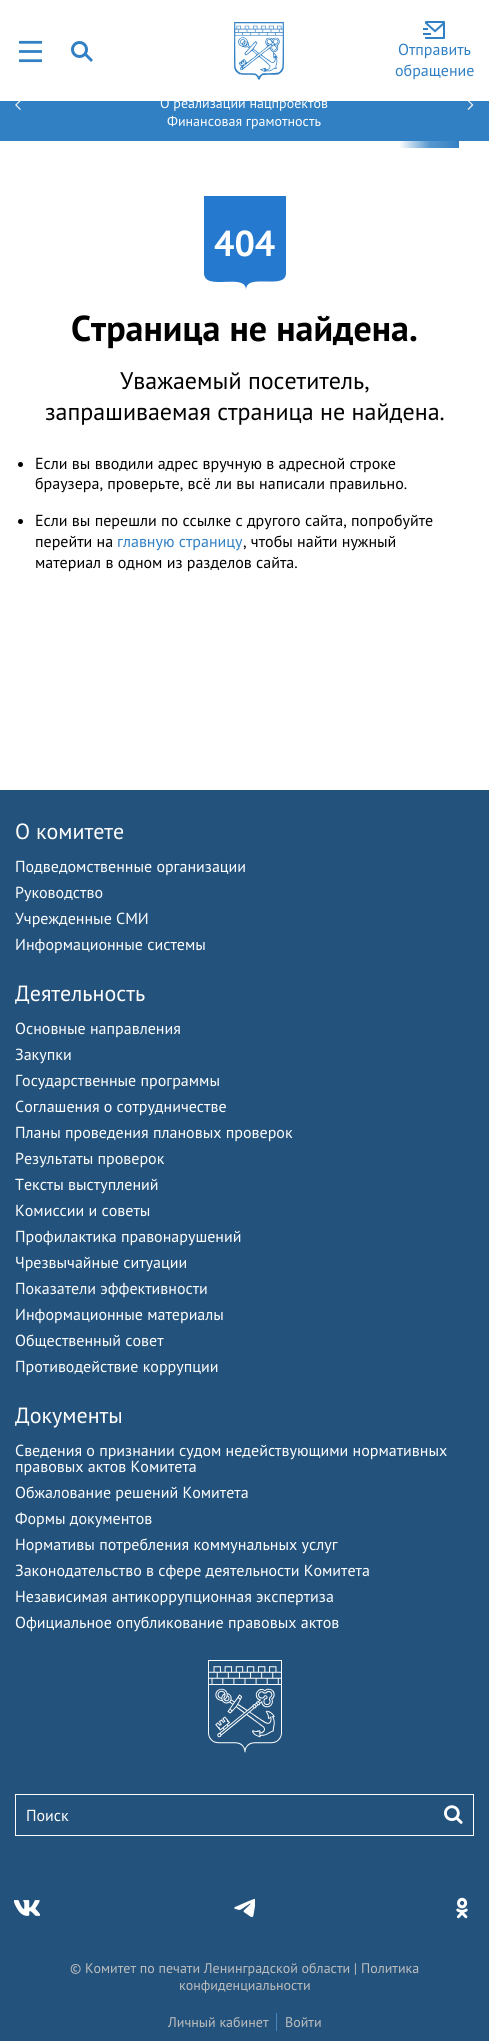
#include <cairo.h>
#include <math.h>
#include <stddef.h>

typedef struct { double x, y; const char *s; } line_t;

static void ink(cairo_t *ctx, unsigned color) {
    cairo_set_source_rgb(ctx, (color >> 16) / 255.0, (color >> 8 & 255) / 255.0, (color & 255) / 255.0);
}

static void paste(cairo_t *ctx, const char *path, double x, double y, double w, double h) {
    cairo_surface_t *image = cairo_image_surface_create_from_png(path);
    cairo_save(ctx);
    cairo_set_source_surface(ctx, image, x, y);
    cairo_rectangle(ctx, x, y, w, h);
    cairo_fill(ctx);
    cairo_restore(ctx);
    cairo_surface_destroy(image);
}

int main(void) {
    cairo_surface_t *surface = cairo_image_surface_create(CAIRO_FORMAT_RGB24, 489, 2041);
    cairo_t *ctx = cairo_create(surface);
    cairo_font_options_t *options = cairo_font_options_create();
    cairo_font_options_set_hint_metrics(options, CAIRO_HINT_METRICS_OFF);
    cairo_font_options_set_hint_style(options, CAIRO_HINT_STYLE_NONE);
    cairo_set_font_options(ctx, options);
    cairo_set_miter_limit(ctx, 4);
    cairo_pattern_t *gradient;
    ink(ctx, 0xFFFFFF);
    cairo_paint(ctx);
    paste(ctx, "media/1.png", 19, 40, 23, 23);
    ink(ctx, 0x3180C4);
    cairo_new_path(ctx);
    cairo_move_to(ctx, 75.5, 42);
    cairo_line_to(ctx, 93, 60);
    cairo_line_to(ctx, 91, 62);
    cairo_line_to(ctx, 73.5, 44.5);
    cairo_close_path(ctx);
    cairo_fill(ctx);
    ink(ctx, 0xFFFFFF);
    cairo_arc(ctx, 79.5, 49.5, 7, 0, 2 * M_PI);
    cairo_fill_preserve(ctx);
    ink(ctx, 0x3180C4);
    cairo_set_line_width(ctx, 3);
    cairo_stroke(ctx);
    paste(ctx, "media/2.png", 234, 22, 50, 58);
    paste(ctx, "media/3.png", 423, 21, 22, 18);
    cairo_select_font_face(ctx, "PT Sans", CAIRO_FONT_SLANT_NORMAL, CAIRO_FONT_WEIGHT_NORMAL);
    cairo_set_font_size(ctx, 16);
    cairo_move_to(ctx, 398, 55);
    cairo_show_text(ctx, "Отправить");
    cairo_move_to(ctx, 395, 76);
    cairo_show_text(ctx, "обращение");
    cairo_rectangle(ctx, 0, 101, 489, 40);
    cairo_fill(ctx);
    paste(ctx, "media/4.png", 15, 101, 6, 9);
    cairo_set_font_size(ctx, 14);
    ink(ctx, 0xFFFFFF);
    cairo_move_to(ctx, 160, 108);
    cairo_show_text(ctx, "О реализации нацпроектов");
    cairo_move_to(ctx, 167, 126);
    cairo_show_text(ctx, "Финансовая грамотность");
    gradient = cairo_pattern_create_linear(399, 140, 459, 140);
    cairo_pattern_add_color_stop_rgba(gradient, 0, 0.192, 0.502, 0.769, 0);
    cairo_pattern_add_color_stop_rgba(gradient, 0.51, 0.192, 0.502, 0.769, 0.81);
    cairo_pattern_add_color_stop_rgba(gradient, 1, 0.192, 0.502, 0.769, 1);
    cairo_set_source(ctx, gradient);
    cairo_pattern_destroy(gradient);
    cairo_rectangle(ctx, 400, 141, 59, 7);
    cairo_fill(ctx);
    paste(ctx, "media/5.png", 467, 101, 7, 9);
    ink(ctx, 0x257ACF);
    cairo_set_fill_rule(ctx, CAIRO_FILL_RULE_EVEN_ODD);
    cairo_new_path(ctx);
    cairo_move_to(ctx, 286, 273);
    cairo_line_to(ctx, 286, 196);
    cairo_line_to(ctx, 204, 196);
    cairo_line_to(ctx, 204, 273);
    cairo_curve_to(ctx, 204, 292, 246, 272, 246, 290);
    cairo_curve_to(ctx, 246, 272, 286, 291, 286, 273);
    cairo_close_path(ctx);
    cairo_fill(ctx);
    cairo_select_font_face(ctx, "PT Sans", CAIRO_FONT_SLANT_NORMAL, CAIRO_FONT_WEIGHT_BOLD);
    cairo_set_font_size(ctx, 36);
    ink(ctx, 0xFFFFFF);
    cairo_move_to(ctx, 214, 256);
    cairo_show_text(ctx, "404");
    ink(ctx, 0x000000);
    cairo_move_to(ctx, 71, 341);
    cairo_show_text(ctx, "Страница не найдена.");
    cairo_select_font_face(ctx, "PT Sans", CAIRO_FONT_SLANT_NORMAL, CAIRO_FONT_WEIGHT_NORMAL);
    cairo_set_font_size(ctx, 24);
    cairo_move_to(ctx, 120, 389);
    cairo_show_text(ctx, "Уважаемый посетитель,");
    cairo_move_to(ctx, 45, 420);
    cairo_show_text(ctx, "запрашиваемая страница не найдена.");
    cairo_new_path(ctx);
    cairo_arc(ctx, 20.5, 464.5, 2.5, 0, 2 * M_PI);
    cairo_fill(ctx);
    cairo_set_font_size(ctx, 16);
    cairo_move_to(ctx, 35, 469);
    cairo_show_text(ctx, "Если вы вводили адрес вручную в адресной строке");
    cairo_move_to(ctx, 35, 489);
    cairo_show_text(ctx, "браузера, проверьте, всё ли вы написали правильно.");
    cairo_new_path(ctx);
    cairo_arc(ctx, 20.5, 521.5, 2.5, 0, 2 * M_PI);
    cairo_fill(ctx);
    cairo_move_to(ctx, 35, 526);
    cairo_show_text(ctx, "Если вы перешли по ссылке с другого сайта, попробуйте");
    cairo_move_to(ctx, 35, 547);
    cairo_show_text(ctx, "перейти на");
    ink(ctx, 0x3180C4);
    cairo_move_to(ctx, 117, 547);
    cairo_show_text(ctx, "главную страницу");
    ink(ctx, 0x000000);
    cairo_move_to(ctx, 243, 547);
    cairo_show_text(ctx, ", чтобы найти нужный");
    cairo_move_to(ctx, 35, 568);
    cairo_show_text(ctx, "материал в одном из разделов сайта.");
    ink(ctx, 0x23537D);
    cairo_rectangle(ctx, 0, 790, 489, 1251);
    cairo_fill(ctx);
    cairo_set_font_size(ctx, 22);
    ink(ctx, 0xFFFFFF);
    cairo_move_to(ctx, 15, 839);
    cairo_show_text(ctx, "О комитете");
    cairo_set_font_size(ctx, 16);
    {
        static const line_t items[] = {
            {15, 872, "Подведомственные организации"},
            {15, 898, "Руководство"},
            {15, 924, "Учрежденные СМИ"},
            {15, 950, "Информационные системы"},
        };
        for (size_t i = 0; i < sizeof items / sizeof *items; i++) {
            cairo_move_to(ctx, items[i].x, items[i].y);
            cairo_show_text(ctx, items[i].s);
        }
    }
    cairo_set_font_size(ctx, 22);
    cairo_move_to(ctx, 15, 1001);
    cairo_show_text(ctx, "Деятельность");
    cairo_set_font_size(ctx, 16);
    {
        static const line_t items[] = {
            {15, 1034, "Основные направления"},
            {15, 1060, "Закупки"},
            {15, 1086, "Государственные программы"},
            {15, 1112, "Соглашения о сотрудничестве"},
            {15, 1138, "Планы проведения плановых проверок"},
            {15, 1164, "Результаты проверок"},
            {15, 1190, "Тексты выступлений"},
            {15, 1216, "Комиссии и советы"},
            {15, 1242, "Профилактика правонарушений"},
            {15, 1268, "Чрезвычайные ситуации"},
            {15, 1294, "Показатели эффективности"},
            {15, 1320, "Информационные материалы"},
            {15, 1346, "Общественный совет"},
            {15, 1372, "Противодействие коррупции"},
        };
        for (size_t i = 0; i < sizeof items / sizeof *items; i++) {
            cairo_move_to(ctx, items[i].x, items[i].y);
            cairo_show_text(ctx, items[i].s);
        }
    }
    cairo_set_font_size(ctx, 22);
    cairo_move_to(ctx, 15, 1423);
    cairo_show_text(ctx, "Документы");
    cairo_set_font_size(ctx, 16);
    {
        static const line_t items[] = {
            {15, 1456, "Сведения о признании судом недействующими нормативных"},
            {15, 1472, "правовых актов Комитета"},
            {15, 1498, "Обжалование решений Комитета"},
            {15, 1524, "Формы документов"},
            {15, 1550, "Нормативы потребления коммунальных услуг"},
            {15, 1576, "Законодательство в сфере деятельности Комитета"},
            {15, 1602, "Независимая антикоррупционная экспертиза"},
            {15, 1628, "Официальное опубликование правовых актов"},
        };
        for (size_t i = 0; i < sizeof items / sizeof *items; i++) {
            cairo_move_to(ctx, items[i].x, items[i].y);
            cairo_show_text(ctx, items[i].s);
        }
    }
    paste(ctx, "media/6.png", 208, 1660, 74, 93);
    cairo_rectangle(ctx, 15.5, 1794.5, 458, 41);
    cairo_set_line_width(ctx, 1);
    cairo_stroke(ctx);
    cairo_move_to(ctx, 26, 1821);
    cairo_show_text(ctx, "Поиск");
    paste(ctx, "media/7.png", 444, 1805, 19, 19);
    paste(ctx, "media/8.png", 14, 1900, 26, 16);
    paste(ctx, "media/9.png", 234, 1898, 21, 20);
    paste(ctx, "media/10.png", 456, 1897, 12, 22);
    cairo_set_font_size(ctx, 14);
    ink(ctx, 0xBDBDBD);
    {
        static const line_t items[] = {
            {70, 1973, "© Комитет по печати Ленинградской области | Политика"},
            {179, 1990, "конфиденциальности"},
            {168, 2027, "Личный кабинет"},
        };
        for (size_t i = 0; i < sizeof items / sizeof *items; i++) {
            cairo_move_to(ctx, items[i].x, items[i].y);
            cairo_show_text(ctx, items[i].s);
        }
    }
    ink(ctx, 0x4487C1);
    cairo_rectangle(ctx, 276, 2013, 1, 18);
    cairo_fill(ctx);
    ink(ctx, 0xBDBDBD);
    cairo_move_to(ctx, 285, 2027);
    cairo_show_text(ctx, "Войти");
    cairo_surface_write_to_png(surface, "image.png");
    cairo_font_options_destroy(options);
    cairo_destroy(ctx);
    cairo_surface_destroy(surface);
    return 0;
}
